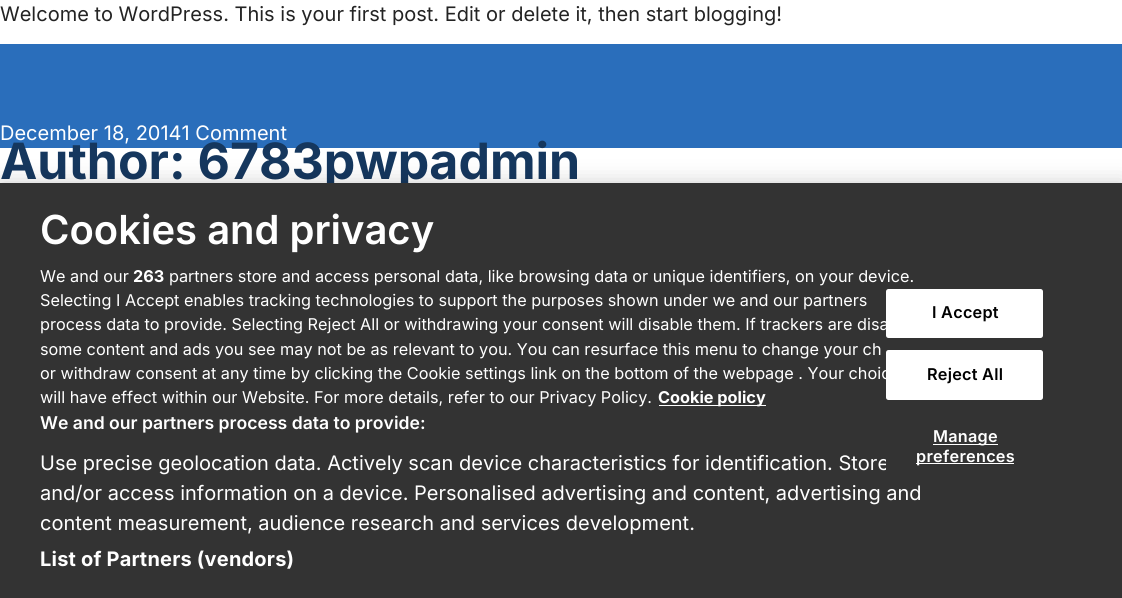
#include <cairo.h>
#include <math.h>
#include <stddef.h>

typedef struct { double x, y; const char *s; } line_t;

static void ink(cairo_t *ctx, unsigned color) {
    cairo_set_source_rgb(ctx, (color >> 16) / 255.0, (color >> 8 & 255) / 255.0, (color & 255) / 255.0);
}

static void write_spaced(cairo_t *ctx, double x, double y, const char *s, double letter, double word) {
    cairo_move_to(ctx, x, y);
    while (*s) {
        char ch[5] = {0};
        int n = 0;
        do ch[n++] = *s++; while ((*s & 0xC0) == 0x80);
        cairo_show_text(ctx, ch);
        cairo_rel_move_to(ctx, letter + word * (*ch == ' '), 0);
    }
}

static void round_path(cairo_t *ctx, double x, double y, double w, double h, double r) {
    cairo_new_sub_path(ctx);
    cairo_arc(ctx, x + w - r, y + h - r, r, 0, M_PI / 2);
    cairo_arc(ctx, x + r, y + h - r, r, M_PI / 2, M_PI);
    cairo_arc(ctx, x + r, y + r, r, M_PI, 1.5 * M_PI);
    cairo_arc(ctx, x + w - r, y + r, r, 1.5 * M_PI, 2 * M_PI);
    cairo_close_path(ctx);
}

static void blur_box(cairo_t *ctx, double x, double y, double w, double h, double r, double blur, double alpha) {
    cairo_push_group_with_content(ctx, CAIRO_CONTENT_ALPHA);
    cairo_set_operator(ctx, CAIRO_OPERATOR_SOURCE);
    for (int i = 15; i >= -15 && fmin(w, h) + blur * i / 3 > 0; i -= 2) {
        double e = blur * i / 6;
        cairo_set_source_rgba(ctx, 0, 0, 0, alpha * erfc((i - 1) / 8.5) / 2);
        round_path(ctx, x - e, y - e, w + 2 * e, h + 2 * e, fmax(0, fmin(r + e + blur * .6, fmin(w, h) / 2 + e)));
        cairo_fill(ctx);
    }
    cairo_pattern_t *soft = cairo_pop_group(ctx);
    cairo_mask(ctx, soft);
    cairo_pattern_destroy(soft);
}

int main(void) {
    cairo_surface_t *surface = cairo_image_surface_create(CAIRO_FORMAT_RGB24, 1122, 598);
    cairo_t *ctx = cairo_create(surface);
    cairo_font_options_t *options = cairo_font_options_create();
    cairo_font_options_set_hint_metrics(options, CAIRO_HINT_METRICS_OFF);
    cairo_font_options_set_hint_style(options, CAIRO_HINT_STYLE_NONE);
    cairo_set_font_options(ctx, options);
    cairo_set_miter_limit(ctx, 4);
    ink(ctx, 0xFFFFFF);
    cairo_paint(ctx);
    cairo_select_font_face(ctx, "Inter", CAIRO_FONT_SLANT_NORMAL, CAIRO_FONT_WEIGHT_NORMAL);
    cairo_set_font_size(ctx, 20);
    ink(ctx, 0x232323);
    cairo_move_to(ctx, 0, 21);
    cairo_show_text(ctx, "Welcome to WordPress. This is your first post. Edit or delete it, then start blogging!");
    ink(ctx, 0x2A6EBB);
    cairo_rectangle(ctx, 0, 44, 1122, 104);
    cairo_fill(ctx);
    ink(ctx, 0xFFFFFF);
    cairo_move_to(ctx, 0, 140);
    cairo_show_text(ctx, "December 18, 20141 Comment");
    cairo_select_font_face(ctx, "Inter", CAIRO_FONT_SLANT_NORMAL, CAIRO_FONT_WEIGHT_BOLD);
    cairo_set_font_size(ctx, 50);
    ink(ctx, 0x15375E);
    cairo_move_to(ctx, 0, 179);
    cairo_show_text(ctx, "Author: 6783pwpadmin");
    ink(ctx, 0x000000);
    blur_box(ctx, 0, 183, 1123, 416, 0, 11, 0.2);
    ink(ctx, 0x333333);
    cairo_rectangle(ctx, 0, 183, 1122, 415);
    cairo_fill(ctx);
    cairo_select_font_face(ctx, "Inter SemiBold", CAIRO_FONT_SLANT_NORMAL, CAIRO_FONT_WEIGHT_NORMAL);
    cairo_set_font_size(ctx, 40);
    ink(ctx, 0xFFFFFF);
    cairo_move_to(ctx, 40, 244);
    cairo_show_text(ctx, "Cookies and privacy");
    cairo_select_font_face(ctx, "Inter", CAIRO_FONT_SLANT_NORMAL, CAIRO_FONT_WEIGHT_NORMAL);
    cairo_set_font_size(ctx, 16.25);
    cairo_move_to(ctx, 40, 282);
    cairo_show_text(ctx, "We and our");
    cairo_select_font_face(ctx, "Inter", CAIRO_FONT_SLANT_NORMAL, CAIRO_FONT_WEIGHT_BOLD);
    cairo_move_to(ctx, 133, 282);
    cairo_show_text(ctx, "263");
    cairo_select_font_face(ctx, "Inter", CAIRO_FONT_SLANT_NORMAL, CAIRO_FONT_WEIGHT_NORMAL);
    {
        static const line_t items[] = {
            {169, 282, "partners store and access personal data, like browsing data or unique identifiers, on your device."},
            {40, 306, "Selecting I Accept enables tracking technologies to support the purposes shown under we and our partners"},
            {40, 330, "process data to provide. Selecting Reject All or withdrawing your consent will disable them. If trackers are disa"},
            {40, 355, "some content and ads you see may not be as relevant to you. You can resurface this menu to change your ch"},
            {40, 379, "or withdraw consent at any time by clicking the Cookie settings link on the bottom of the webpage . Your choic"},
            {40, 403, "will have effect within our Website. For more details, refer to our Privacy Policy."},
        };
        for (size_t i = 0; i < sizeof items / sizeof *items; i++) {
            cairo_move_to(ctx, items[i].x, items[i].y);
            cairo_show_text(ctx, items[i].s);
        }
    }
    cairo_rectangle(ctx, 659, 405, 107, 1);
    cairo_fill(ctx);
    cairo_select_font_face(ctx, "Inter", CAIRO_FONT_SLANT_NORMAL, CAIRO_FONT_WEIGHT_BOLD);
    cairo_move_to(ctx, 658, 403);
    cairo_show_text(ctx, "Cookie policy");
    cairo_select_font_face(ctx, "Inter SemiBold", CAIRO_FONT_SLANT_NORMAL, CAIRO_FONT_WEIGHT_NORMAL);
    cairo_set_font_size(ctx, 17.6);
    cairo_move_to(ctx, 40, 429);
    cairo_show_text(ctx, "We and our partners process data to provide:");
    cairo_select_font_face(ctx, "Inter", CAIRO_FONT_SLANT_NORMAL, CAIRO_FONT_WEIGHT_NORMAL);
    cairo_set_font_size(ctx, 20);
    {
        static const line_t items[] = {
            {40, 470, "Use precise geolocation data. Actively scan device characteristics for identification. Store"},
            {40, 500, "and/or access information on a device. Personalised advertising and content, advertising and"},
            {40, 530, "content measurement, audience research and services development."},
        };
        for (size_t i = 0; i < sizeof items / sizeof *items; i++) {
            cairo_move_to(ctx, items[i].x, items[i].y);
            cairo_show_text(ctx, items[i].s);
        }
    }
    cairo_select_font_face(ctx, "Inter", CAIRO_FONT_SLANT_NORMAL, CAIRO_FONT_WEIGHT_BOLD);
    write_spaced(ctx, 40, 566, "List of Partners (vendors)", 0.2, 0);
    round_path(ctx, 886, 289, 157, 49, 2.5);
    cairo_fill(ctx);
    cairo_select_font_face(ctx, "Inter SemiBold", CAIRO_FONT_SLANT_NORMAL, CAIRO_FONT_WEIGHT_NORMAL);
    cairo_set_font_size(ctx, 16.25);
    ink(ctx, 0x000000);
    write_spaced(ctx, 932, 318, "I Accept", 0.25, 0);
    ink(ctx, 0xFFFFFF);
    round_path(ctx, 886, 350, 157, 50, 2.5);
    cairo_fill(ctx);
    ink(ctx, 0x000000);
    write_spaced(ctx, 927, 380, "Reject All", 0.25, 0);
    ink(ctx, 0x333333);
    round_path(ctx, 886, 413, 157, 68, 2.5);
    cairo_fill(ctx);
    ink(ctx, 0xFFFFFF);
    cairo_rectangle(ctx, 933, 444, 65, 1);
    cairo_fill(ctx);
    write_spaced(ctx, 933, 442, "Manage", 0.25, 0);
    cairo_rectangle(ctx, 916, 463, 98, 1);
    cairo_fill(ctx);
    write_spaced(ctx, 916, 462, "preferences", 0.25, 0);
    cairo_surface_write_to_png(surface, "image.png");
    cairo_font_options_destroy(options);
    cairo_destroy(ctx);
    cairo_surface_destroy(surface);
    return 0;
}
